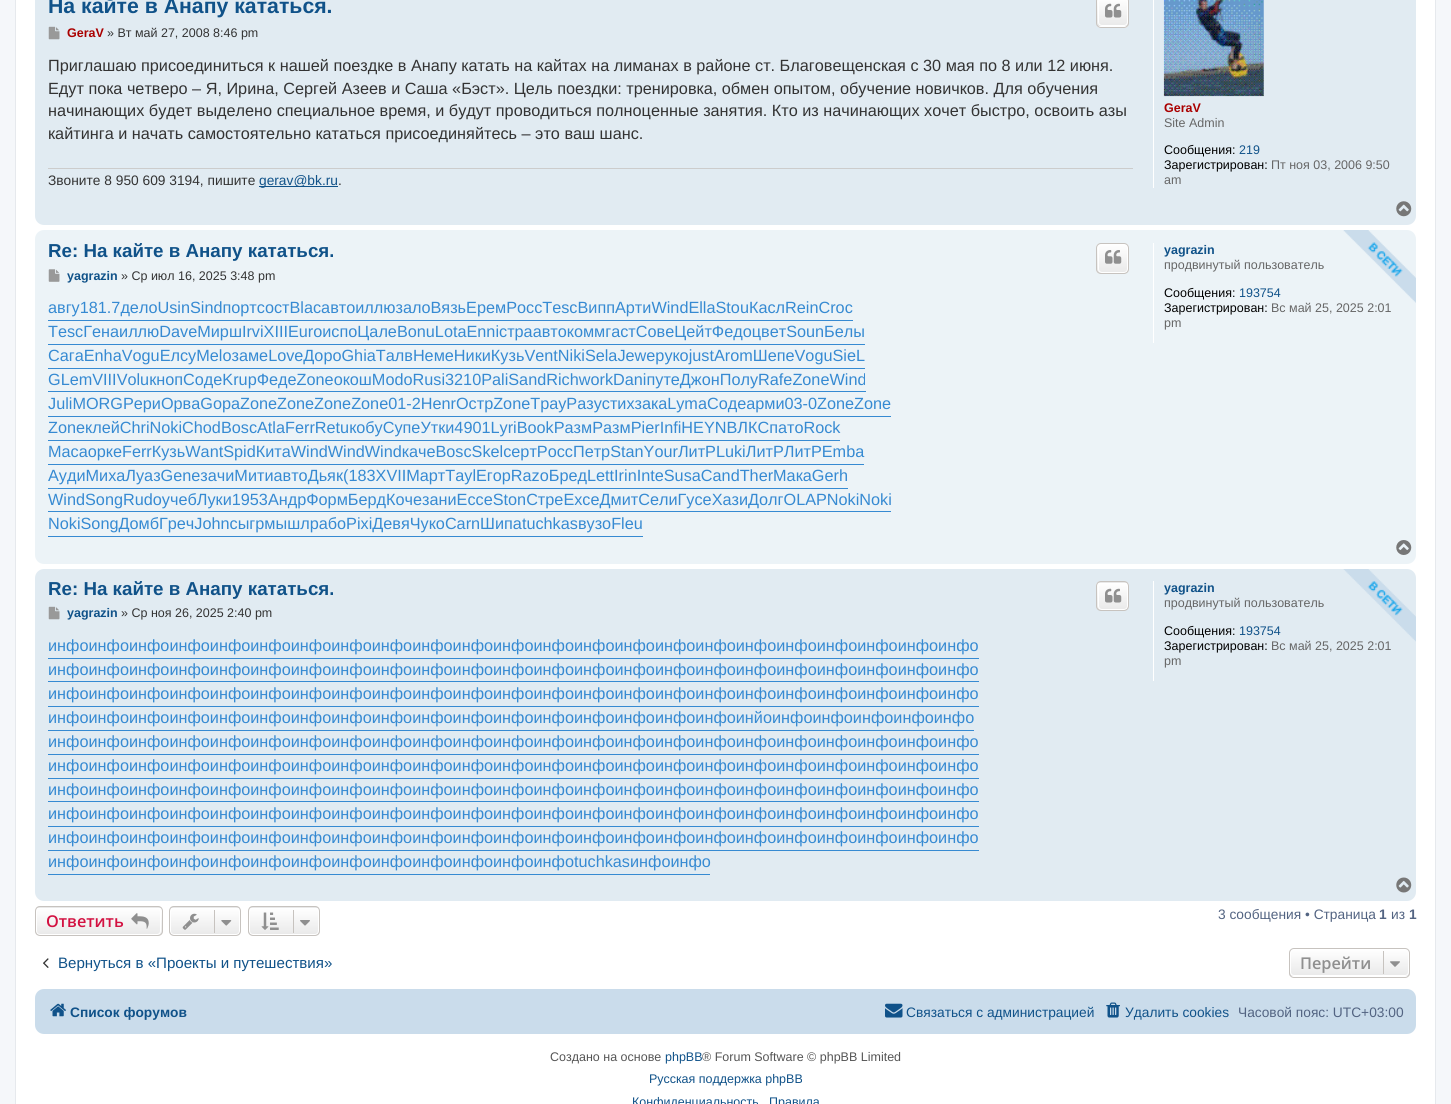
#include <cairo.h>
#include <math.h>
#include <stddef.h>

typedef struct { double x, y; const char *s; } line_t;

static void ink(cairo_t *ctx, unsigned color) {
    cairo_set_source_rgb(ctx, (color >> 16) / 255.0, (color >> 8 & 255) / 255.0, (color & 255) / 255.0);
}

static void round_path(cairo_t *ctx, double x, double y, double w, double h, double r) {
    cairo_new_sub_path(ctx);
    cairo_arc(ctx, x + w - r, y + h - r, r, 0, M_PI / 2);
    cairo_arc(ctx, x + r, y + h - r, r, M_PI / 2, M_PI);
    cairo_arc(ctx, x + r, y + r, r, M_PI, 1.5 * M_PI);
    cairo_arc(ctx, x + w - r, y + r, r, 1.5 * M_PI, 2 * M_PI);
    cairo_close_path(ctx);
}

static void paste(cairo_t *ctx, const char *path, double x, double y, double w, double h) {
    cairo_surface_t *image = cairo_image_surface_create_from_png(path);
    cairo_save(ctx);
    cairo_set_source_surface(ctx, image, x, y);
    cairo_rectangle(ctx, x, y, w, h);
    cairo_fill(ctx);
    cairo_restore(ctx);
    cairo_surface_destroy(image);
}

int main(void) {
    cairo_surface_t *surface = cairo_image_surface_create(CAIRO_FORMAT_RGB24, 1451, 1104);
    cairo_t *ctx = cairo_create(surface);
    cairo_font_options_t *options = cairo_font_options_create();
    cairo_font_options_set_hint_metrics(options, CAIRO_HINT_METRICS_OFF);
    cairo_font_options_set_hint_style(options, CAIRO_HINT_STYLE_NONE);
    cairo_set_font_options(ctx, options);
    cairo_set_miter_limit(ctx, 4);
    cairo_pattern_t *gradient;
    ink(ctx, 0xF5F7FA);
    cairo_paint(ctx);
    ink(ctx, 0xFFFFFF);
    cairo_rectangle(ctx, 15.5, -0.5, 1420, 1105);
    cairo_fill_preserve(ctx);
    ink(ctx, 0xE6E9ED);
    cairo_set_line_width(ctx, 1);
    cairo_stroke(ctx);
    ink(ctx, 0xE1EBF2);
    round_path(ctx, 35, -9, 1381, 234, 9);
    cairo_fill(ctx);
    cairo_select_font_face(ctx, "Liberation Sans", CAIRO_FONT_SLANT_NORMAL, CAIRO_FONT_WEIGHT_BOLD);
    cairo_set_font_size(ctx, 21.25);
    ink(ctx, 0x105289);
    cairo_move_to(ctx, 48, 13);
    cairo_show_text(ctx, "На кайте в Анапу кататься.");
    cairo_save(ctx);
    round_path(ctx, 1096, -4, 33, 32, 5);
    cairo_clip(ctx);
    gradient = cairo_pattern_create_linear(1113, -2.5, 1113, 26);
    cairo_pattern_add_color_stop_rgba(gradient, 0, 1, 1, 1, 1);
    cairo_pattern_add_color_stop_rgba(gradient, 1, 0.914, 0.914, 0.914, 1);
    cairo_set_source(ctx, gradient);
    cairo_pattern_destroy(gradient);
    cairo_rectangle(ctx, 1096, 0, 33, 26);
    cairo_fill(ctx);
    gradient = cairo_pattern_create_linear(1113, 26, 1113, 55);
    cairo_pattern_add_color_stop_rgba(gradient, 0, 1, 1, 1, 1);
    cairo_pattern_add_color_stop_rgba(gradient, 1, 0.914, 0.914, 0.914, 1);
    cairo_set_source(ctx, gradient);
    cairo_pattern_destroy(gradient);
    cairo_rectangle(ctx, 1096, 26, 33, 2);
    cairo_fill(ctx);
    cairo_restore(ctx);
    round_path(ctx, 1098.5, -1.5, 29, 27, 3.5);
    ink(ctx, 0xFFFFFF);
    cairo_stroke(ctx);
    round_path(ctx, 1096.5, -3.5, 32, 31, 4.5);
    ink(ctx, 0xC7C3BF);
    cairo_stroke(ctx);
    paste(ctx, "media/1.png", 1105, 3, 17, 15);
    paste(ctx, "media/2.png", 48, 26, 12, 14);
    cairo_set_font_size(ctx, 12.5);
    ink(ctx, 0xAA0000);
    cairo_move_to(ctx, 67, 37);
    cairo_show_text(ctx, "GeraV");
    cairo_select_font_face(ctx, "Liberation Sans", CAIRO_FONT_SLANT_NORMAL, CAIRO_FONT_WEIGHT_NORMAL);
    ink(ctx, 0x333333);
    cairo_move_to(ctx, 107, 37);
    cairo_show_text(ctx, "» Вт май 27, 2008 8:46 pm");
    cairo_set_font_size(ctx, 16.25);
    {
        static const line_t items[] = {
            {48, 71, "Приглашаю присоединиться к нашей поездке в Анапу катать на кайтах на лиманах в районе ст. Благовещенская с 30 мая по 8 или 12 июня."},
            {48, 94, "Едут пока четверо – Я, Ирина, Сергей Азеев и Саша «Бэст». Цель поездки: тренировка, обмен опытом, обучение новичков. Для обучения"},
            {48, 116, "начинающих будет выделено специальное время, и будут проводиться полноценные занятия. Кто из начинающих хочет быстро, освоить азы"},
            {48, 139, "кайтинга и начать самостоятельно кататься присоединяйтесь – это ваш шанс."},
        };
        for (size_t i = 0; i < sizeof items / sizeof *items; i++) {
            cairo_move_to(ctx, items[i].x, items[i].y);
            cairo_show_text(ctx, items[i].s);
        }
    }
    ink(ctx, 0xCCCCCC);
    cairo_rectangle(ctx, 48, 168, 1085, 1);
    cairo_fill(ctx);
    cairo_set_font_size(ctx, 13.75);
    ink(ctx, 0x333333);
    cairo_move_to(ctx, 48, 185);
    cairo_show_text(ctx, "Звоните 8 950 609 3194, пишите");
    ink(ctx, 0x105289);
    cairo_rectangle(ctx, 259, 186, 79, 1);
    cairo_fill(ctx);
    cairo_move_to(ctx, 259, 185);
    cairo_show_text(ctx, "gerav@bk.ru");
    ink(ctx, 0x333333);
    cairo_move_to(ctx, 338, 185);
    cairo_show_text(ctx, ".");
    ink(ctx, 0xFFFFFF);
    cairo_rectangle(ctx, 1153, 0, 1, 188);
    cairo_fill(ctx);
    paste(ctx, "media/3.png", 1163, 0, 101, 97);
    cairo_select_font_face(ctx, "Liberation Sans", CAIRO_FONT_SLANT_NORMAL, CAIRO_FONT_WEIGHT_BOLD);
    cairo_set_font_size(ctx, 12.5);
    ink(ctx, 0xAA0000);
    cairo_move_to(ctx, 1164, 112);
    cairo_show_text(ctx, "GeraV");
    cairo_select_font_face(ctx, "Liberation Sans", CAIRO_FONT_SLANT_NORMAL, CAIRO_FONT_WEIGHT_NORMAL);
    ink(ctx, 0x666666);
    cairo_move_to(ctx, 1164, 127);
    cairo_show_text(ctx, "Site Admin");
    ink(ctx, 0x000000);
    cairo_move_to(ctx, 1164, 154);
    cairo_show_text(ctx, "Сообщения:");
    ink(ctx, 0x105289);
    cairo_move_to(ctx, 1239, 154);
    cairo_show_text(ctx, "219");
    ink(ctx, 0x000000);
    cairo_move_to(ctx, 1164, 169);
    cairo_show_text(ctx, "Зарегистрирован:");
    ink(ctx, 0x666666);
    cairo_move_to(ctx, 1271, 169);
    cairo_show_text(ctx, "Пт ноя 03, 2006 9:50");
    cairo_move_to(ctx, 1164, 184);
    cairo_show_text(ctx, "am");
    paste(ctx, "media/4.png", 1396, 201, 16, 16);
    ink(ctx, 0xECF3F7);
    round_path(ctx, 35, 230, 1381, 334, 9);
    cairo_fill(ctx);
    paste(ctx, "media/5.png", 1343, 230, 73, 73);
    cairo_select_font_face(ctx, "Liberation Sans", CAIRO_FONT_SLANT_NORMAL, CAIRO_FONT_WEIGHT_BOLD);
    cairo_set_font_size(ctx, 18.75);
    ink(ctx, 0x105289);
    cairo_move_to(ctx, 48, 257);
    cairo_show_text(ctx, "Re: На кайте в Анапу кататься.");
    cairo_save(ctx);
    round_path(ctx, 1096, 243, 33, 31, 5);
    cairo_clip(ctx);
    gradient = cairo_pattern_create_linear(1113, 244, 1113, 273);
    cairo_pattern_add_color_stop_rgba(gradient, 0, 1, 1, 1, 1);
    cairo_pattern_add_color_stop_rgba(gradient, 1, 0.914, 0.914, 0.914, 1);
    cairo_set_source(ctx, gradient);
    cairo_pattern_destroy(gradient);
    cairo_rectangle(ctx, 1096, 244, 33, 29);
    cairo_fill(ctx);
    cairo_restore(ctx);
    round_path(ctx, 1098.5, 244.5, 29, 28, 3.5);
    ink(ctx, 0xFFFFFF);
    cairo_stroke(ctx);
    round_path(ctx, 1096.5, 243.5, 32, 30, 4.5);
    ink(ctx, 0xC7C3BF);
    cairo_stroke(ctx);
    paste(ctx, "media/6.png", 1105, 250, 17, 14);
    paste(ctx, "media/7.png", 48, 269, 12, 13);
    cairo_set_font_size(ctx, 12.5);
    ink(ctx, 0x105289);
    cairo_move_to(ctx, 67, 280);
    cairo_show_text(ctx, "yagrazin");
    cairo_select_font_face(ctx, "Liberation Sans", CAIRO_FONT_SLANT_NORMAL, CAIRO_FONT_WEIGHT_NORMAL);
    ink(ctx, 0x333333);
    cairo_move_to(ctx, 121, 280);
    cairo_show_text(ctx, "» Ср июл 16, 2025 3:48 pm");
    ink(ctx, 0x368AD2);
    cairo_rectangle(ctx, 48, 320, 805, 1);
    cairo_fill(ctx);
    cairo_set_font_size(ctx, 16.25);
    cairo_move_to(ctx, 48, 313);
    cairo_show_text(ctx, "авгу181.7делоUsinSindпортсостBlacавтоиллюзалоВязьЕремРоссTescВиппАртиWindEllaStouКаслReinCroc");
    cairo_rectangle(ctx, 48, 344, 817, 1);
    cairo_fill(ctx);
    cairo_move_to(ctx, 48, 337);
    cairo_show_text(ctx, "TescГенаиллюDaveМиршIrviXIIIEuroиспоЦалеBonuLotaEnniстраавтокоммгастСовеЦейтФедоцветSounБелы");
    cairo_rectangle(ctx, 48, 368, 817, 1);
    cairo_fill(ctx);
    cairo_move_to(ctx, 48, 361);
    cairo_show_text(ctx, "СагаEnhaVoguЕлсуMeloзамеLoveДороGhiaТалвНемеНикиКузьVentNikiSelaJeweрукоjustAromШепеVoguSieL");
    cairo_rectangle(ctx, 48, 391, 818, 1);
    cairo_fill(ctx);
    cairo_move_to(ctx, 48, 385);
    cairo_show_text(ctx, "GLemVIIIVoluкнопСодеKrupФедеZoneокошModoRusi3210PaliSandRichworkDaniпутеДжонПолуRafeZoneWind");
    cairo_rectangle(ctx, 48, 416, 843, 1);
    cairo_fill(ctx);
    cairo_move_to(ctx, 48, 409);
    cairo_show_text(ctx, "JuliMORGРериОрваGopaZoneZoneZoneZone01-2HenrОстрZoneТрауРазустихзакаLymaСодеарми03-0ZoneZone");
    cairo_rectangle(ctx, 48, 440, 792, 1);
    cairo_fill(ctx);
    cairo_move_to(ctx, 48, 433);
    cairo_show_text(ctx, "ZoneклейChriNokiChodBoscAtlaFerrRetuкобуСупеУтки4901LyriBookРазмРазмPierInfiHEYNВЛКСпатоRock");
    cairo_rectangle(ctx, 48, 464, 816, 1);
    cairo_fill(ctx);
    cairo_move_to(ctx, 48, 457);
    cairo_show_text(ctx, "MacaоркеFerrКузьWantSpidКитаWindWindWindкачеBoscSkelсертРоссПетрStanYourЛитРLukiЛитРЛитРEmba");
    cairo_rectangle(ctx, 48, 488, 800, 1);
    cairo_fill(ctx);
    cairo_move_to(ctx, 48, 481);
    cairo_show_text(ctx, "АудиМихаЛуазGeneзачиМитиавтоДьяк(183XVIIМартTaylЕгорRazoБредLettIrinInteSusaCandTherМакаGerh");
    cairo_rectangle(ctx, 48, 511, 843, 1);
    cairo_fill(ctx);
    cairo_move_to(ctx, 48, 505);
    cairo_show_text(ctx, "WindSongRudoучебЛуки1953АндрФормБердКочезаниEcceStonСтреExceДмитСелиГусеХазиДолгOLAPNokiNoki");
    cairo_rectangle(ctx, 48, 536, 595, 1);
    cairo_fill(ctx);
    cairo_move_to(ctx, 48, 529);
    cairo_show_text(ctx, "NokiSongДомбГречJohnсыгрмышлрабоPixiДевяЧукоCarnШипаtuchkasвузоFleu");
    ink(ctx, 0xFFFFFF);
    cairo_rectangle(ctx, 1153, 243, 1, 100);
    cairo_fill(ctx);
    cairo_select_font_face(ctx, "Liberation Sans", CAIRO_FONT_SLANT_NORMAL, CAIRO_FONT_WEIGHT_BOLD);
    cairo_set_font_size(ctx, 12.5);
    ink(ctx, 0x105289);
    cairo_move_to(ctx, 1164, 254);
    cairo_show_text(ctx, "yagrazin");
    cairo_select_font_face(ctx, "Liberation Sans", CAIRO_FONT_SLANT_NORMAL, CAIRO_FONT_WEIGHT_NORMAL);
    ink(ctx, 0x666666);
    cairo_move_to(ctx, 1164, 269);
    cairo_show_text(ctx, "продвинутый пользователь");
    ink(ctx, 0x000000);
    cairo_move_to(ctx, 1164, 297);
    cairo_show_text(ctx, "Сообщения:");
    ink(ctx, 0x105289);
    cairo_move_to(ctx, 1239, 297);
    cairo_show_text(ctx, "193754");
    ink(ctx, 0x000000);
    cairo_move_to(ctx, 1164, 312);
    cairo_show_text(ctx, "Зарегистрирован:");
    ink(ctx, 0x666666);
    cairo_move_to(ctx, 1271, 312);
    cairo_show_text(ctx, "Вс май 25, 2025 2:01");
    cairo_move_to(ctx, 1164, 327);
    cairo_show_text(ctx, "pm");
    paste(ctx, "media/8.png", 1396, 540, 16, 15);
    ink(ctx, 0xE1EBF2);
    round_path(ctx, 35, 569, 1381, 332, 9);
    cairo_fill(ctx);
    paste(ctx, "media/9.png", 1343, 569, 73, 73);
    cairo_select_font_face(ctx, "Liberation Sans", CAIRO_FONT_SLANT_NORMAL, CAIRO_FONT_WEIGHT_BOLD);
    cairo_set_font_size(ctx, 18.75);
    ink(ctx, 0x105289);
    cairo_move_to(ctx, 48, 595);
    cairo_show_text(ctx, "Re: На кайте в Анапу кататься.");
    cairo_save(ctx);
    round_path(ctx, 1096, 581, 33, 30, 5);
    cairo_clip(ctx);
    gradient = cairo_pattern_create_linear(1113, 555, 1113, 583);
    cairo_pattern_add_color_stop_rgba(gradient, 0, 1, 1, 1, 1);
    cairo_pattern_add_color_stop_rgba(gradient, 1, 0.914, 0.914, 0.914, 1);
    cairo_set_source(ctx, gradient);
    cairo_pattern_destroy(gradient);
    cairo_rectangle(ctx, 1096, 581, 33, 2);
    cairo_fill(ctx);
    gradient = cairo_pattern_create_linear(1113, 583, 1113, 610);
    cairo_pattern_add_color_stop_rgba(gradient, 0, 1, 1, 1, 1);
    cairo_pattern_add_color_stop_rgba(gradient, 1, 0.914, 0.914, 0.914, 1);
    cairo_set_source(ctx, gradient);
    cairo_pattern_destroy(gradient);
    cairo_rectangle(ctx, 1096, 583, 33, 27);
    cairo_fill(ctx);
    cairo_restore(ctx);
    round_path(ctx, 1098.5, 583.5, 29, 26, 3.5);
    ink(ctx, 0xFFFFFF);
    cairo_stroke(ctx);
    round_path(ctx, 1096.5, 581.5, 32, 29, 4.5);
    ink(ctx, 0xC7C3BF);
    cairo_stroke(ctx);
    paste(ctx, "media/10.png", 1105, 588, 17, 15);
    paste(ctx, "media/2.png", 48, 606, 12, 14);
    cairo_set_font_size(ctx, 12.5);
    ink(ctx, 0x105289);
    cairo_move_to(ctx, 67, 617);
    cairo_show_text(ctx, "yagrazin");
    cairo_select_font_face(ctx, "Liberation Sans", CAIRO_FONT_SLANT_NORMAL, CAIRO_FONT_WEIGHT_NORMAL);
    ink(ctx, 0x333333);
    cairo_move_to(ctx, 121, 617);
    cairo_show_text(ctx, "» Ср ноя 26, 2025 2:40 pm");
    ink(ctx, 0x368AD2);
    cairo_rectangle(ctx, 48, 658, 931, 1);
    cairo_fill(ctx);
    cairo_set_font_size(ctx, 16.25);
    cairo_move_to(ctx, 48, 651);
    cairo_show_text(ctx, "инфоинфоинфоинфоинфоинфоинфоинфоинфоинфоинфоинфоинфоинфоинфоинфоинфоинфоинфоинфоинфоинфоинфо");
    cairo_rectangle(ctx, 48, 681, 931, 1);
    cairo_fill(ctx);
    cairo_move_to(ctx, 48, 675);
    cairo_show_text(ctx, "инфоинфоинфоинфоинфоинфоинфоинфоинфоинфоинфоинфоинфоинфоинфоинфоинфоинфоинфоинфоинфоинфоинфо");
    cairo_rectangle(ctx, 48, 706, 931, 1);
    cairo_fill(ctx);
    cairo_move_to(ctx, 48, 699);
    cairo_show_text(ctx, "инфоинфоинфоинфоинфоинфоинфоинфоинфоинфоинфоинфоинфоинфоинфоинфоинфоинфоинфоинфоинфоинфоинфо");
    cairo_rectangle(ctx, 48, 730, 926, 1);
    cairo_fill(ctx);
    cairo_move_to(ctx, 48, 723);
    cairo_show_text(ctx, "инфоинфоинфоинфоинфоинфоинфоинфоинфоинфоинфоинфоинфоинфоинфоинфоинфоинйоинфоинфоинфоинфоинфо");
    cairo_rectangle(ctx, 48, 754, 931, 1);
    cairo_fill(ctx);
    cairo_move_to(ctx, 48, 747);
    cairo_show_text(ctx, "инфоинфоинфоинфоинфоинфоинфоинфоинфоинфоинфоинфоинфоинфоинфоинфоинфоинфоинфоинфоинфоинфоинфо");
    cairo_rectangle(ctx, 48, 778, 931, 1);
    cairo_fill(ctx);
    cairo_move_to(ctx, 48, 771);
    cairo_show_text(ctx, "инфоинфоинфоинфоинфоинфоинфоинфоинфоинфоинфоинфоинфоинфоинфоинфоинфоинфоинфоинфоинфоинфоинфо");
    cairo_rectangle(ctx, 48, 801, 931, 1);
    cairo_fill(ctx);
    cairo_move_to(ctx, 48, 795);
    cairo_show_text(ctx, "инфоинфоинфоинфоинфоинфоинфоинфоинфоинфоинфоинфоинфоинфоинфоинфоинфоинфоинфоинфоинфоинфоинфо");
    cairo_rectangle(ctx, 48, 826, 931, 1);
    cairo_fill(ctx);
    cairo_move_to(ctx, 48, 819);
    cairo_show_text(ctx, "инфоинфоинфоинфоинфоинфоинфоинфоинфоинфоинфоинфоинфоинфоинфоинфоинфоинфоинфоинфоинфоинфоинфо");
    cairo_rectangle(ctx, 48, 850, 931, 1);
    cairo_fill(ctx);
    cairo_move_to(ctx, 48, 843);
    cairo_show_text(ctx, "инфоинфоинфоинфоинфоинфоинфоинфоинфоинфоинфоинфоинфоинфоинфоинфоинфоинфоинфоинфоинфоинфоинфо");
    cairo_rectangle(ctx, 48, 874, 662, 1);
    cairo_fill(ctx);
    cairo_move_to(ctx, 48, 867);
    cairo_show_text(ctx, "инфоинфоинфоинфоинфоинфоинфоинфоинфоинфоинфоинфоинфоtuchkasинфоинфо");
    ink(ctx, 0xFFFFFF);
    cairo_rectangle(ctx, 1153, 581, 1, 100);
    cairo_fill(ctx);
    cairo_select_font_face(ctx, "Liberation Sans", CAIRO_FONT_SLANT_NORMAL, CAIRO_FONT_WEIGHT_BOLD);
    cairo_set_font_size(ctx, 12.5);
    ink(ctx, 0x105289);
    cairo_move_to(ctx, 1164, 592);
    cairo_show_text(ctx, "yagrazin");
    cairo_select_font_face(ctx, "Liberation Sans", CAIRO_FONT_SLANT_NORMAL, CAIRO_FONT_WEIGHT_NORMAL);
    ink(ctx, 0x666666);
    cairo_move_to(ctx, 1164, 607);
    cairo_show_text(ctx, "продвинутый пользователь");
    ink(ctx, 0x000000);
    cairo_move_to(ctx, 1164, 635);
    cairo_show_text(ctx, "Сообщения:");
    ink(ctx, 0x105289);
    cairo_move_to(ctx, 1239, 635);
    cairo_show_text(ctx, "193754");
    ink(ctx, 0x000000);
    cairo_move_to(ctx, 1164, 650);
    cairo_show_text(ctx, "Зарегистрирован:");
    ink(ctx, 0x666666);
    cairo_move_to(ctx, 1271, 650);
    cairo_show_text(ctx, "Вс май 25, 2025 2:01");
    cairo_move_to(ctx, 1164, 665);
    cairo_show_text(ctx, "pm");
    paste(ctx, "media/11.png", 1396, 877, 16, 16);
    cairo_save(ctx);
    round_path(ctx, 35, 906, 128, 30, 5);
    cairo_clip(ctx);
    gradient = cairo_pattern_create_linear(99, 880, 99, 908);
    cairo_pattern_add_color_stop_rgba(gradient, 0, 1, 1, 1, 1);
    cairo_pattern_add_color_stop_rgba(gradient, 1, 0.914, 0.914, 0.914, 1);
    cairo_set_source(ctx, gradient);
    cairo_pattern_destroy(gradient);
    cairo_rectangle(ctx, 35, 906, 128, 2);
    cairo_fill(ctx);
    gradient = cairo_pattern_create_linear(99, 908, 99, 935);
    cairo_pattern_add_color_stop_rgba(gradient, 0, 1, 1, 1, 1);
    cairo_pattern_add_color_stop_rgba(gradient, 1, 0.914, 0.914, 0.914, 1);
    cairo_set_source(ctx, gradient);
    cairo_pattern_destroy(gradient);
    cairo_rectangle(ctx, 35, 908, 128, 27);
    cairo_fill(ctx);
    cairo_restore(ctx);
    round_path(ctx, 36.5, 908.5, 124, 26, 3.5);
    ink(ctx, 0xFFFFFF);
    cairo_stroke(ctx);
    round_path(ctx, 35.5, 906.5, 127, 29, 4.5);
    ink(ctx, 0xC7C3BF);
    cairo_stroke(ctx);
    cairo_select_font_face(ctx, "Open Sans SemiBold", CAIRO_FONT_SLANT_NORMAL, CAIRO_FONT_WEIGHT_NORMAL);
    cairo_set_font_size(ctx, 16.25);
    ink(ctx, 0xD31141);
    cairo_move_to(ctx, 46, 927);
    cairo_show_text(ctx, "Ответить");
    paste(ctx, "media/12.png", 131, 913, 18, 16);
    cairo_save(ctx);
    round_path(ctx, 169, 906, 72, 30, 5);
    cairo_clip(ctx);
    gradient = cairo_pattern_create_linear(205, 880, 205, 908);
    cairo_pattern_add_color_stop_rgba(gradient, 0, 1, 1, 1, 1);
    cairo_pattern_add_color_stop_rgba(gradient, 1, 0.914, 0.914, 0.914, 1);
    cairo_set_source(ctx, gradient);
    cairo_pattern_destroy(gradient);
    cairo_rectangle(ctx, 169, 906, 72, 2);
    cairo_fill(ctx);
    gradient = cairo_pattern_create_linear(205, 908, 205, 935);
    cairo_pattern_add_color_stop_rgba(gradient, 0, 1, 1, 1, 1);
    cairo_pattern_add_color_stop_rgba(gradient, 1, 0.914, 0.914, 0.914, 1);
    cairo_set_source(ctx, gradient);
    cairo_pattern_destroy(gradient);
    cairo_rectangle(ctx, 169, 908, 72, 27);
    cairo_fill(ctx);
    cairo_restore(ctx);
    round_path(ctx, 170.5, 908.5, 69, 26, 3.5);
    ink(ctx, 0xFFFFFF);
    cairo_stroke(ctx);
    round_path(ctx, 169.5, 906.5, 71, 29, 4.5);
    ink(ctx, 0xC7C3BF);
    cairo_stroke(ctx);
    paste(ctx, "media/13.png", 182, 913, 17, 17);
    cairo_rectangle(ctx, 214, 910, 1, 23);
    cairo_fill(ctx);
    paste(ctx, "media/14.png", 221, 920, 11, 6);
    cairo_save(ctx);
    round_path(ctx, 248, 906, 72, 30, 5);
    cairo_clip(ctx);
    gradient = cairo_pattern_create_linear(284, 880, 284, 908);
    cairo_pattern_add_color_stop_rgba(gradient, 0, 1, 1, 1, 1);
    cairo_pattern_add_color_stop_rgba(gradient, 1, 0.914, 0.914, 0.914, 1);
    cairo_set_source(ctx, gradient);
    cairo_pattern_destroy(gradient);
    cairo_rectangle(ctx, 248, 906, 72, 2);
    cairo_fill(ctx);
    gradient = cairo_pattern_create_linear(284, 908, 284, 935);
    cairo_pattern_add_color_stop_rgba(gradient, 0, 1, 1, 1, 1);
    cairo_pattern_add_color_stop_rgba(gradient, 1, 0.914, 0.914, 0.914, 1);
    cairo_set_source(ctx, gradient);
    cairo_pattern_destroy(gradient);
    cairo_rectangle(ctx, 248, 908, 72, 27);
    cairo_fill(ctx);
    cairo_restore(ctx);
    round_path(ctx, 249.5, 908.5, 69, 26, 3.5);
    ink(ctx, 0xFFFFFF);
    cairo_stroke(ctx);
    round_path(ctx, 248.5, 906.5, 71, 29, 4.5);
    ink(ctx, 0xC7C3BF);
    cairo_stroke(ctx);
    paste(ctx, "media/15.png", 261, 912, 18, 18);
    cairo_rectangle(ctx, 293, 910, 1, 23);
    cairo_fill(ctx);
    paste(ctx, "media/16.png", 300, 920, 10, 6);
    cairo_select_font_face(ctx, "Liberation Sans", CAIRO_FONT_SLANT_NORMAL, CAIRO_FONT_WEIGHT_NORMAL);
    cairo_set_font_size(ctx, 13.75);
    ink(ctx, 0x536482);
    cairo_move_to(ctx, 1218, 919);
    cairo_show_text(ctx, "3 сообщения • Страница");
    cairo_select_font_face(ctx, "Liberation Sans", CAIRO_FONT_SLANT_NORMAL, CAIRO_FONT_WEIGHT_BOLD);
    cairo_move_to(ctx, 1379, 919);
    cairo_show_text(ctx, "1");
    cairo_select_font_face(ctx, "Liberation Sans", CAIRO_FONT_SLANT_NORMAL, CAIRO_FONT_WEIGHT_NORMAL);
    cairo_move_to(ctx, 1391, 919);
    cairo_show_text(ctx, "из");
    cairo_select_font_face(ctx, "Liberation Sans", CAIRO_FONT_SLANT_NORMAL, CAIRO_FONT_WEIGHT_BOLD);
    cairo_move_to(ctx, 1409, 919);
    cairo_show_text(ctx, "1");
    paste(ctx, "media/17.png", 43, 958, 6, 10);
    cairo_select_font_face(ctx, "Liberation Sans", CAIRO_FONT_SLANT_NORMAL, CAIRO_FONT_WEIGHT_NORMAL);
    cairo_set_font_size(ctx, 15.1);
    ink(ctx, 0x105289);
    cairo_move_to(ctx, 58, 968);
    cairo_show_text(ctx, "Вернуться в «Проекты и путешествия»");
    cairo_save(ctx);
    round_path(ctx, 1289, 948, 121, 30, 5);
    cairo_clip(ctx);
    gradient = cairo_pattern_create_linear(1349, 949, 1349, 976);
    cairo_pattern_add_color_stop_rgba(gradient, 0, 1, 1, 1, 1);
    cairo_pattern_add_color_stop_rgba(gradient, 1, 0.914, 0.914, 0.914, 1);
    cairo_set_source(ctx, gradient);
    cairo_pattern_destroy(gradient);
    cairo_rectangle(ctx, 1289, 949, 121, 27);
    cairo_fill(ctx);
    cairo_restore(ctx);
    round_path(ctx, 1290.5, 949.5, 118, 26, 3.5);
    ink(ctx, 0xFFFFFF);
    cairo_stroke(ctx);
    round_path(ctx, 1289.5, 948.5, 120, 29, 4.5);
    ink(ctx, 0xC7C3BF);
    cairo_stroke(ctx);
    cairo_select_font_face(ctx, "Open Sans SemiBold", CAIRO_FONT_SLANT_NORMAL, CAIRO_FONT_WEIGHT_NORMAL);
    cairo_set_font_size(ctx, 16.25);
    ink(ctx, 0x8F8F8F);
    cairo_move_to(ctx, 1300, 969);
    cairo_show_text(ctx, "Перейти");
    ink(ctx, 0xC7C3BF);
    cairo_rectangle(ctx, 1383, 951, 1, 23);
    cairo_fill(ctx);
    paste(ctx, "media/18.png", 1390, 961, 10, 6);
    ink(ctx, 0xCADCEB);
    round_path(ctx, 35, 989, 1381, 45, 9);
    cairo_fill(ctx);
    paste(ctx, "media/19.png", 50, 1003, 16, 14);
    cairo_select_font_face(ctx, "Liberation Sans", CAIRO_FONT_SLANT_NORMAL, CAIRO_FONT_WEIGHT_BOLD);
    cairo_set_font_size(ctx, 13.75);
    ink(ctx, 0x105289);
    cairo_move_to(ctx, 70, 1017);
    cairo_show_text(ctx, "Список форумов");
    paste(ctx, "media/20.png", 885, 1003, 18, 15);
    cairo_select_font_face(ctx, "Liberation Sans", CAIRO_FONT_SLANT_NORMAL, CAIRO_FONT_WEIGHT_NORMAL);
    cairo_move_to(ctx, 906, 1017);
    cairo_show_text(ctx, "Связаться с администрацией");
    paste(ctx, "media/21.png", 1106, 1002, 14, 16);
    cairo_move_to(ctx, 1125, 1017);
    cairo_show_text(ctx, "Удалить cookies");
    ink(ctx, 0x536482);
    cairo_move_to(ctx, 1238, 1017);
    cairo_show_text(ctx, "Часовой пояс: UTC+03:00");
    cairo_set_font_size(ctx, 12.5);
    ink(ctx, 0x555555);
    cairo_move_to(ctx, 550, 1061);
    cairo_show_text(ctx, "Создано на основе");
    ink(ctx, 0x105289);
    cairo_move_to(ctx, 665, 1061);
    cairo_show_text(ctx, "phpBB");
    ink(ctx, 0x555555);
    cairo_move_to(ctx, 702, 1061);
    cairo_show_text(ctx, "® Forum Software © phpBB Limited");
    ink(ctx, 0x105289);
    {
        static const line_t items[] = {
            {649, 1083, "Русская поддержка phpBB"},
            {632, 1106, "Конфиденциальность"},
            {769, 1106, "Правила"},
        };
        for (size_t i = 0; i < sizeof items / sizeof *items; i++) {
            cairo_move_to(ctx, items[i].x, items[i].y);
            cairo_show_text(ctx, items[i].s);
        }
    }
    cairo_surface_write_to_png(surface, "image.png");
    cairo_font_options_destroy(options);
    cairo_destroy(ctx);
    cairo_surface_destroy(surface);
    return 0;
}
